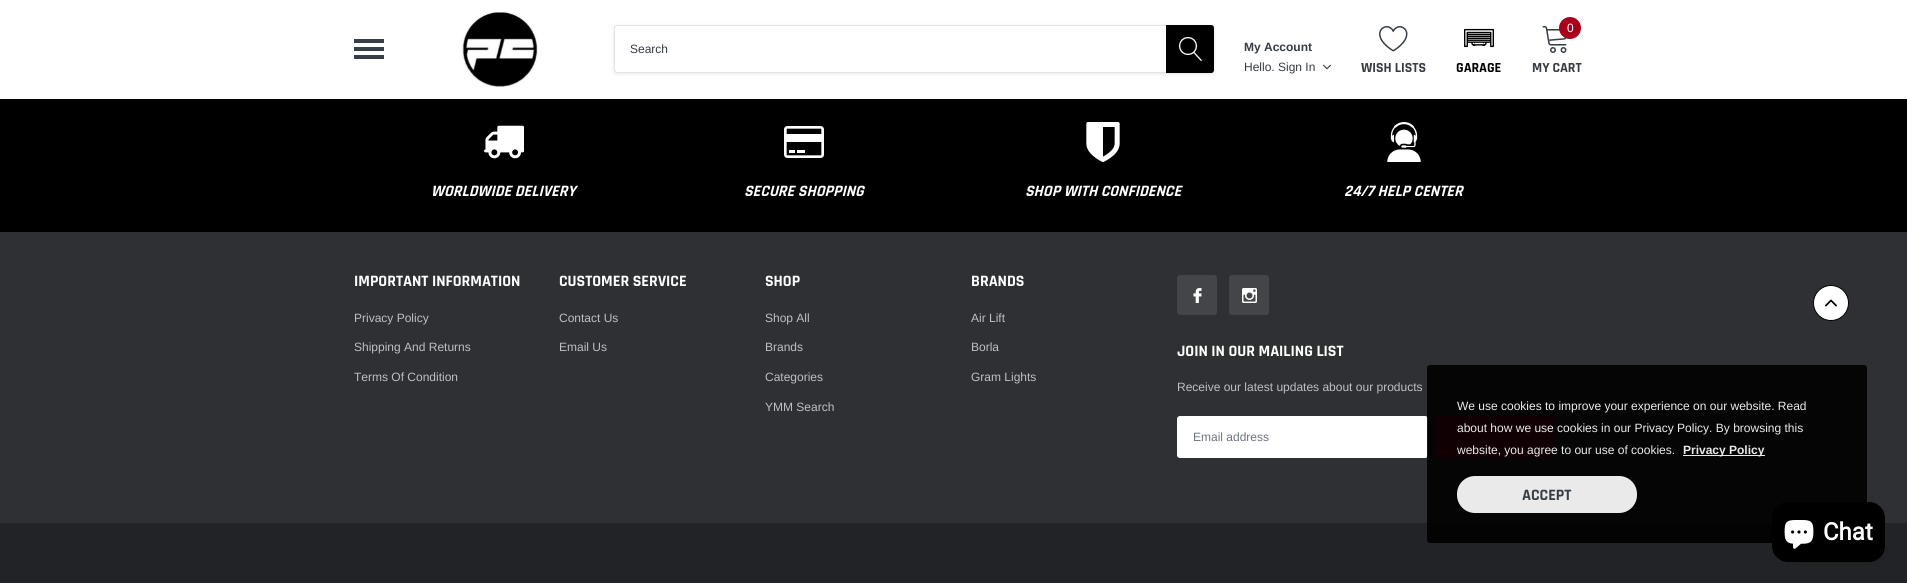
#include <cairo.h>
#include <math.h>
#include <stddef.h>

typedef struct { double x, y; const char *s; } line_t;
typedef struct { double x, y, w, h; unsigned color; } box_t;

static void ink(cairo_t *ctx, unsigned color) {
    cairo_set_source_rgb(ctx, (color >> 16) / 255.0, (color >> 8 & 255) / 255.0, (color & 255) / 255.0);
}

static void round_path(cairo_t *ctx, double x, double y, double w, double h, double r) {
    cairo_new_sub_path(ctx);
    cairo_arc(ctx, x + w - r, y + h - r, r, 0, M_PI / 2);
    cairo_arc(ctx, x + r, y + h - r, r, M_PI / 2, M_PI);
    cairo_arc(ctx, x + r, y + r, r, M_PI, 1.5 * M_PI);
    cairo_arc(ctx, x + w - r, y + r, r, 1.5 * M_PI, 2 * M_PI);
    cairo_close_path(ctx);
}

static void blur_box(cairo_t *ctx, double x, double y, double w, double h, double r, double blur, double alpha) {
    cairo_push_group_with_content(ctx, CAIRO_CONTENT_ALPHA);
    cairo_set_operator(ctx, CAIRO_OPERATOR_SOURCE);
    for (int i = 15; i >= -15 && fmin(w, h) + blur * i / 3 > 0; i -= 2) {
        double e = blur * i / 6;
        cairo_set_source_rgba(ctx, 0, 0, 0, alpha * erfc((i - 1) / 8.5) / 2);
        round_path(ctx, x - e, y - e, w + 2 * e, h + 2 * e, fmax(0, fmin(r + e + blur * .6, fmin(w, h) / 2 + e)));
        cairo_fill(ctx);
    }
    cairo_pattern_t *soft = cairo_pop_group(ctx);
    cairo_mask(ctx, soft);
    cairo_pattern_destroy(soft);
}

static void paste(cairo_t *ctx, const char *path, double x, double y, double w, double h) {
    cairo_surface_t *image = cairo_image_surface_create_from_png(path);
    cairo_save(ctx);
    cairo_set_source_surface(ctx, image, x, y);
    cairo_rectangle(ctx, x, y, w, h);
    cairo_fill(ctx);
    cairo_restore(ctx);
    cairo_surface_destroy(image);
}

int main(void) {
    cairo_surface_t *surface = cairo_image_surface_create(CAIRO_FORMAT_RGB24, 1907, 583);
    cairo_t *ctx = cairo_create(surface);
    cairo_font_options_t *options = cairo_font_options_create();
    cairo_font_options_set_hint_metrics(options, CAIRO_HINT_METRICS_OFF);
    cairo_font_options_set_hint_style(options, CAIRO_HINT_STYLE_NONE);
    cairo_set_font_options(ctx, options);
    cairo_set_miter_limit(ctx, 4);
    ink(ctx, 0x000000);
    cairo_paint(ctx);
    {
        static const box_t items[] = {
            {0, 0, 1907, 99, 0xFFFFFF},
            {354, 47, 30, 4, 0x383E47},
            {354, 39, 30, 4, 0x383E47},
            {354, 55, 30, 4, 0x383E47},
        };
        for (size_t i = 0; i < sizeof items / sizeof *items; i++) {
            ink(ctx, items[i].color);
            cairo_rectangle(ctx, items[i].x, items[i].y, items[i].w, items[i].h);
            cairo_fill(ctx);
        }
    }
    paste(ctx, "media/1.png", 462, 11, 76, 77);
    ink(ctx, 0x000000);
    blur_box(ctx, 614, 26, 600, 48, 3, 2, 0.1);
    ink(ctx, 0xFFFFFF);
    round_path(ctx, 614, 25, 600, 48, 3);
    cairo_fill(ctx);
    ink(ctx, 0xE2E4E8);
    cairo_set_fill_rule(ctx, CAIRO_FILL_RULE_EVEN_ODD);
    cairo_new_path(ctx);
    cairo_move_to(ctx, 617, 25);
    cairo_line_to(ctx, 1166, 25);
    cairo_line_to(ctx, 1166, 73);
    cairo_line_to(ctx, 617, 73);
    cairo_curve_to(ctx, 615, 73, 614, 72, 614, 70);
    cairo_line_to(ctx, 614, 28);
    cairo_curve_to(ctx, 614, 26, 615, 25, 617, 25);
    cairo_close_path(ctx);
    cairo_move_to(ctx, 617, 26);
    cairo_line_to(ctx, 1166, 26);
    cairo_line_to(ctx, 1166, 72);
    cairo_line_to(ctx, 617, 72);
    cairo_line_to(ctx, 615, 70);
    cairo_line_to(ctx, 615, 28);
    cairo_curve_to(ctx, 615, 27, 616, 26, 617, 26);
    cairo_close_path(ctx);
    cairo_fill(ctx);
    cairo_select_font_face(ctx, "Arimo", CAIRO_FONT_SLANT_NORMAL, CAIRO_FONT_WEIGHT_NORMAL);
    cairo_set_font_size(ctx, 12);
    ink(ctx, 0x373D45);
    cairo_move_to(ctx, 630, 53);
    cairo_show_text(ctx, "Search");
    ink(ctx, 0x000000);
    cairo_new_path(ctx);
    cairo_move_to(ctx, 1166.5, 25.5);
    cairo_line_to(ctx, 1211, 25.5);
    cairo_curve_to(ctx, 1212.5, 25.5, 1213.5, 26.5, 1213.5, 28);
    cairo_line_to(ctx, 1213.5, 70);
    cairo_curve_to(ctx, 1213.5, 71.5, 1212.5, 72.5, 1211, 72.5);
    cairo_line_to(ctx, 1166.5, 72.5);
    cairo_close_path(ctx);
    cairo_fill_preserve(ctx);
    cairo_set_line_width(ctx, 1);
    cairo_stroke(ctx);
    paste(ctx, "media/2.png", 1179, 37, 23, 24);
    cairo_select_font_face(ctx, "Arimo", CAIRO_FONT_SLANT_NORMAL, CAIRO_FONT_WEIGHT_BOLD);
    ink(ctx, 0x373D45);
    cairo_move_to(ctx, 1244, 51);
    cairo_show_text(ctx, "My Account");
    cairo_select_font_face(ctx, "Arimo", CAIRO_FONT_SLANT_NORMAL, CAIRO_FONT_WEIGHT_NORMAL);
    cairo_move_to(ctx, 1244, 71);
    cairo_show_text(ctx, "Hello. Sign In");
    paste(ctx, "media/3.png", 1323, 64, 8, 6);
    paste(ctx, "media/4.png", 1542, 26, 25, 27);
    ink(ctx, 0xA8001A);
    cairo_arc(ctx, 1570, 28, 11, 0, 2 * M_PI);
    cairo_fill(ctx);
    ink(ctx, 0xFFFFFF);
    cairo_move_to(ctx, 1567, 32);
    cairo_show_text(ctx, "0");
    cairo_select_font_face(ctx, "Rajdhani", CAIRO_FONT_SLANT_NORMAL, CAIRO_FONT_WEIGHT_BOLD);
    cairo_set_font_size(ctx, 14);
    ink(ctx, 0x373D45);
    cairo_move_to(ctx, 1532, 72);
    cairo_show_text(ctx, "MY CART");
    paste(ctx, "media/5.png", 1379, 26, 29, 26);
    cairo_move_to(ctx, 1361, 72);
    cairo_show_text(ctx, "WISH LISTS");
    paste(ctx, "media/6.png", 1464, 28, 30, 20);
    ink(ctx, 0x000000);
    cairo_move_to(ctx, 1456, 72);
    cairo_show_text(ctx, "GARAGE");
    paste(ctx, "media/7.png", 484, 125, 40, 34);
    cairo_select_font_face(ctx, "Rajdhani", CAIRO_FONT_SLANT_ITALIC, CAIRO_FONT_WEIGHT_BOLD);
    cairo_set_font_size(ctx, 16);
    ink(ctx, 0xFFFFFF);
    cairo_move_to(ctx, 431, 196);
    cairo_show_text(ctx, "WORLDWIDE DELIVERY");
    paste(ctx, "media/8.png", 784, 126, 40, 32);
    cairo_move_to(ctx, 744, 196);
    cairo_show_text(ctx, "SECURE SHOPPING");
    paste(ctx, "media/9.png", 1086, 122, 34, 40);
    cairo_move_to(ctx, 1025, 196);
    cairo_show_text(ctx, "SHOP WITH CONFIDENCE");
    paste(ctx, "media/10.png", 1387, 122, 34, 40);
    cairo_move_to(ctx, 1344, 196);
    cairo_show_text(ctx, "24/7 HELP CENTER");
    ink(ctx, 0x2E3034);
    cairo_rectangle(ctx, 0, 232, 1907, 291);
    cairo_fill(ctx);
    cairo_select_font_face(ctx, "Rajdhani", CAIRO_FONT_SLANT_NORMAL, CAIRO_FONT_WEIGHT_BOLD);
    ink(ctx, 0xFFFFFF);
    cairo_move_to(ctx, 354, 286);
    cairo_show_text(ctx, "IMPORTANT INFORMATION");
    cairo_select_font_face(ctx, "Arimo", CAIRO_FONT_SLANT_NORMAL, CAIRO_FONT_WEIGHT_NORMAL);
    cairo_set_font_size(ctx, 12);
    ink(ctx, 0xBCBFC5);
    {
        static const line_t items[] = {
            {354, 322, "Privacy Policy"},
            {354, 351, "Shipping And Returns"},
            {354, 381, "Terms Of Condition"},
        };
        for (size_t i = 0; i < sizeof items / sizeof *items; i++) {
            cairo_move_to(ctx, items[i].x, items[i].y);
            cairo_show_text(ctx, items[i].s);
        }
    }
    cairo_select_font_face(ctx, "Rajdhani", CAIRO_FONT_SLANT_NORMAL, CAIRO_FONT_WEIGHT_BOLD);
    cairo_set_font_size(ctx, 16);
    ink(ctx, 0xFFFFFF);
    cairo_move_to(ctx, 559, 286);
    cairo_show_text(ctx, "CUSTOMER SERVICE");
    cairo_select_font_face(ctx, "Arimo", CAIRO_FONT_SLANT_NORMAL, CAIRO_FONT_WEIGHT_NORMAL);
    cairo_set_font_size(ctx, 12);
    ink(ctx, 0xBCBFC5);
    cairo_move_to(ctx, 559, 322);
    cairo_show_text(ctx, "Contact Us");
    cairo_move_to(ctx, 559, 351);
    cairo_show_text(ctx, "Email Us");
    cairo_select_font_face(ctx, "Rajdhani", CAIRO_FONT_SLANT_NORMAL, CAIRO_FONT_WEIGHT_BOLD);
    cairo_set_font_size(ctx, 16);
    ink(ctx, 0xFFFFFF);
    cairo_move_to(ctx, 765, 286);
    cairo_show_text(ctx, "SHOP");
    cairo_select_font_face(ctx, "Arimo", CAIRO_FONT_SLANT_NORMAL, CAIRO_FONT_WEIGHT_NORMAL);
    cairo_set_font_size(ctx, 12);
    ink(ctx, 0xBCBFC5);
    {
        static const line_t items[] = {
            {765, 322, "Shop All"},
            {765, 351, "Brands"},
            {765, 381, "Categories"},
            {765, 411, "YMM Search"},
        };
        for (size_t i = 0; i < sizeof items / sizeof *items; i++) {
            cairo_move_to(ctx, items[i].x, items[i].y);
            cairo_show_text(ctx, items[i].s);
        }
    }
    cairo_select_font_face(ctx, "Rajdhani", CAIRO_FONT_SLANT_NORMAL, CAIRO_FONT_WEIGHT_BOLD);
    cairo_set_font_size(ctx, 16);
    ink(ctx, 0xFFFFFF);
    cairo_move_to(ctx, 971, 286);
    cairo_show_text(ctx, "BRANDS");
    cairo_select_font_face(ctx, "Arimo", CAIRO_FONT_SLANT_NORMAL, CAIRO_FONT_WEIGHT_NORMAL);
    cairo_set_font_size(ctx, 12);
    ink(ctx, 0xBCBFC5);
    {
        static const line_t items[] = {
            {971, 322, "Air Lift"},
            {971, 351, "Borla"},
            {971, 381, "Gram Lights"},
        };
        for (size_t i = 0; i < sizeof items / sizeof *items; i++) {
            cairo_move_to(ctx, items[i].x, items[i].y);
            cairo_show_text(ctx, items[i].s);
        }
    }
    ink(ctx, 0x434548);
    round_path(ctx, 1177, 275, 40, 40, 3);
    cairo_fill(ctx);
    paste(ctx, "media/11.png", 1193, 288, 9, 15);
    round_path(ctx, 1229, 275, 40, 40, 3);
    cairo_fill(ctx);
    paste(ctx, "media/12.png", 1242, 288, 15, 15);
    cairo_select_font_face(ctx, "Rajdhani", CAIRO_FONT_SLANT_NORMAL, CAIRO_FONT_WEIGHT_BOLD);
    cairo_set_font_size(ctx, 16);
    ink(ctx, 0xFFFFFF);
    cairo_move_to(ctx, 1177, 356);
    cairo_show_text(ctx, "JOIN IN OUR MAILING LIST");
    cairo_select_font_face(ctx, "Arimo", CAIRO_FONT_SLANT_NORMAL, CAIRO_FONT_WEIGHT_NORMAL);
    cairo_set_font_size(ctx, 12);
    ink(ctx, 0xBCBFC5);
    cairo_move_to(ctx, 1177, 391);
    cairo_show_text(ctx, "Receive our latest updates about our products");
    ink(ctx, 0xFFFFFF);
    round_path(ctx, 1177.5, 416.5, 250, 41, 2.5);
    cairo_fill_preserve(ctx);
    cairo_stroke(ctx);
    ink(ctx, 0x6C757D);
    cairo_move_to(ctx, 1193, 441);
    cairo_show_text(ctx, "Email address");
    ink(ctx, 0xA8001A);
    round_path(ctx, 1433.5, 416.5, 119, 41, 2.5);
    cairo_fill_preserve(ctx);
    cairo_stroke(ctx);
    ink(ctx, 0x222326);
    cairo_rectangle(ctx, 0, 523, 1907, 60);
    cairo_fill(ctx);
    ink(ctx, 0xFFFFFF);
    cairo_arc(ctx, 1831, 303, 17.5, 0, 2 * M_PI);
    cairo_fill_preserve(ctx);
    ink(ctx, 0x000000);
    cairo_stroke(ctx);
    paste(ctx, "media/13.png", 1825, 299, 12, 8);
    cairo_set_source_rgba(ctx, 0, 0, 0, 0.9);
    round_path(ctx, 1427, 365, 440, 178, 3);
    cairo_fill(ctx);
    ink(ctx, 0xEAEAEB);
    {
        static const line_t items[] = {
            {1457, 410, "We use cookies to improve your experience on our website. Read"},
            {1457, 432, "about how we use cookies in our Privacy Policy. By browsing this"},
            {1457, 454, "website, you agree to our use of cookies."},
        };
        for (size_t i = 0; i < sizeof items / sizeof *items; i++) {
            cairo_move_to(ctx, items[i].x, items[i].y);
            cairo_show_text(ctx, items[i].s);
        }
    }
    cairo_rectangle(ctx, 1683, 455, 82, 1);
    cairo_fill(ctx);
    cairo_select_font_face(ctx, "Arimo", CAIRO_FONT_SLANT_NORMAL, CAIRO_FONT_WEIGHT_BOLD);
    cairo_move_to(ctx, 1683, 454);
    cairo_show_text(ctx, "Privacy Policy");
    round_path(ctx, 1457, 476, 180, 37, 18);
    cairo_fill(ctx);
    cairo_select_font_face(ctx, "Rajdhani", CAIRO_FONT_SLANT_NORMAL, CAIRO_FONT_WEIGHT_BOLD);
    cairo_set_font_size(ctx, 16);
    ink(ctx, 0x373D45);
    cairo_move_to(ctx, 1522, 500);
    cairo_show_text(ctx, "ACCEPT");
    ink(ctx, 0x000000);
    round_path(ctx, 1772, 502, 113, 60, 16);
    cairo_fill(ctx);
    paste(ctx, "media/14.png", 1784, 520, 30, 29);
    cairo_select_font_face(ctx, "Roboto", CAIRO_FONT_SLANT_NORMAL, CAIRO_FONT_WEIGHT_BOLD);
    cairo_set_font_size(ctx, 24);
    ink(ctx, 0xFFFFFF);
    cairo_move_to(ctx, 1823, 540);
    cairo_show_text(ctx, "Chat");
    cairo_surface_write_to_png(surface, "image.png");
    cairo_font_options_destroy(options);
    cairo_destroy(ctx);
    cairo_surface_destroy(surface);
    return 0;
}
